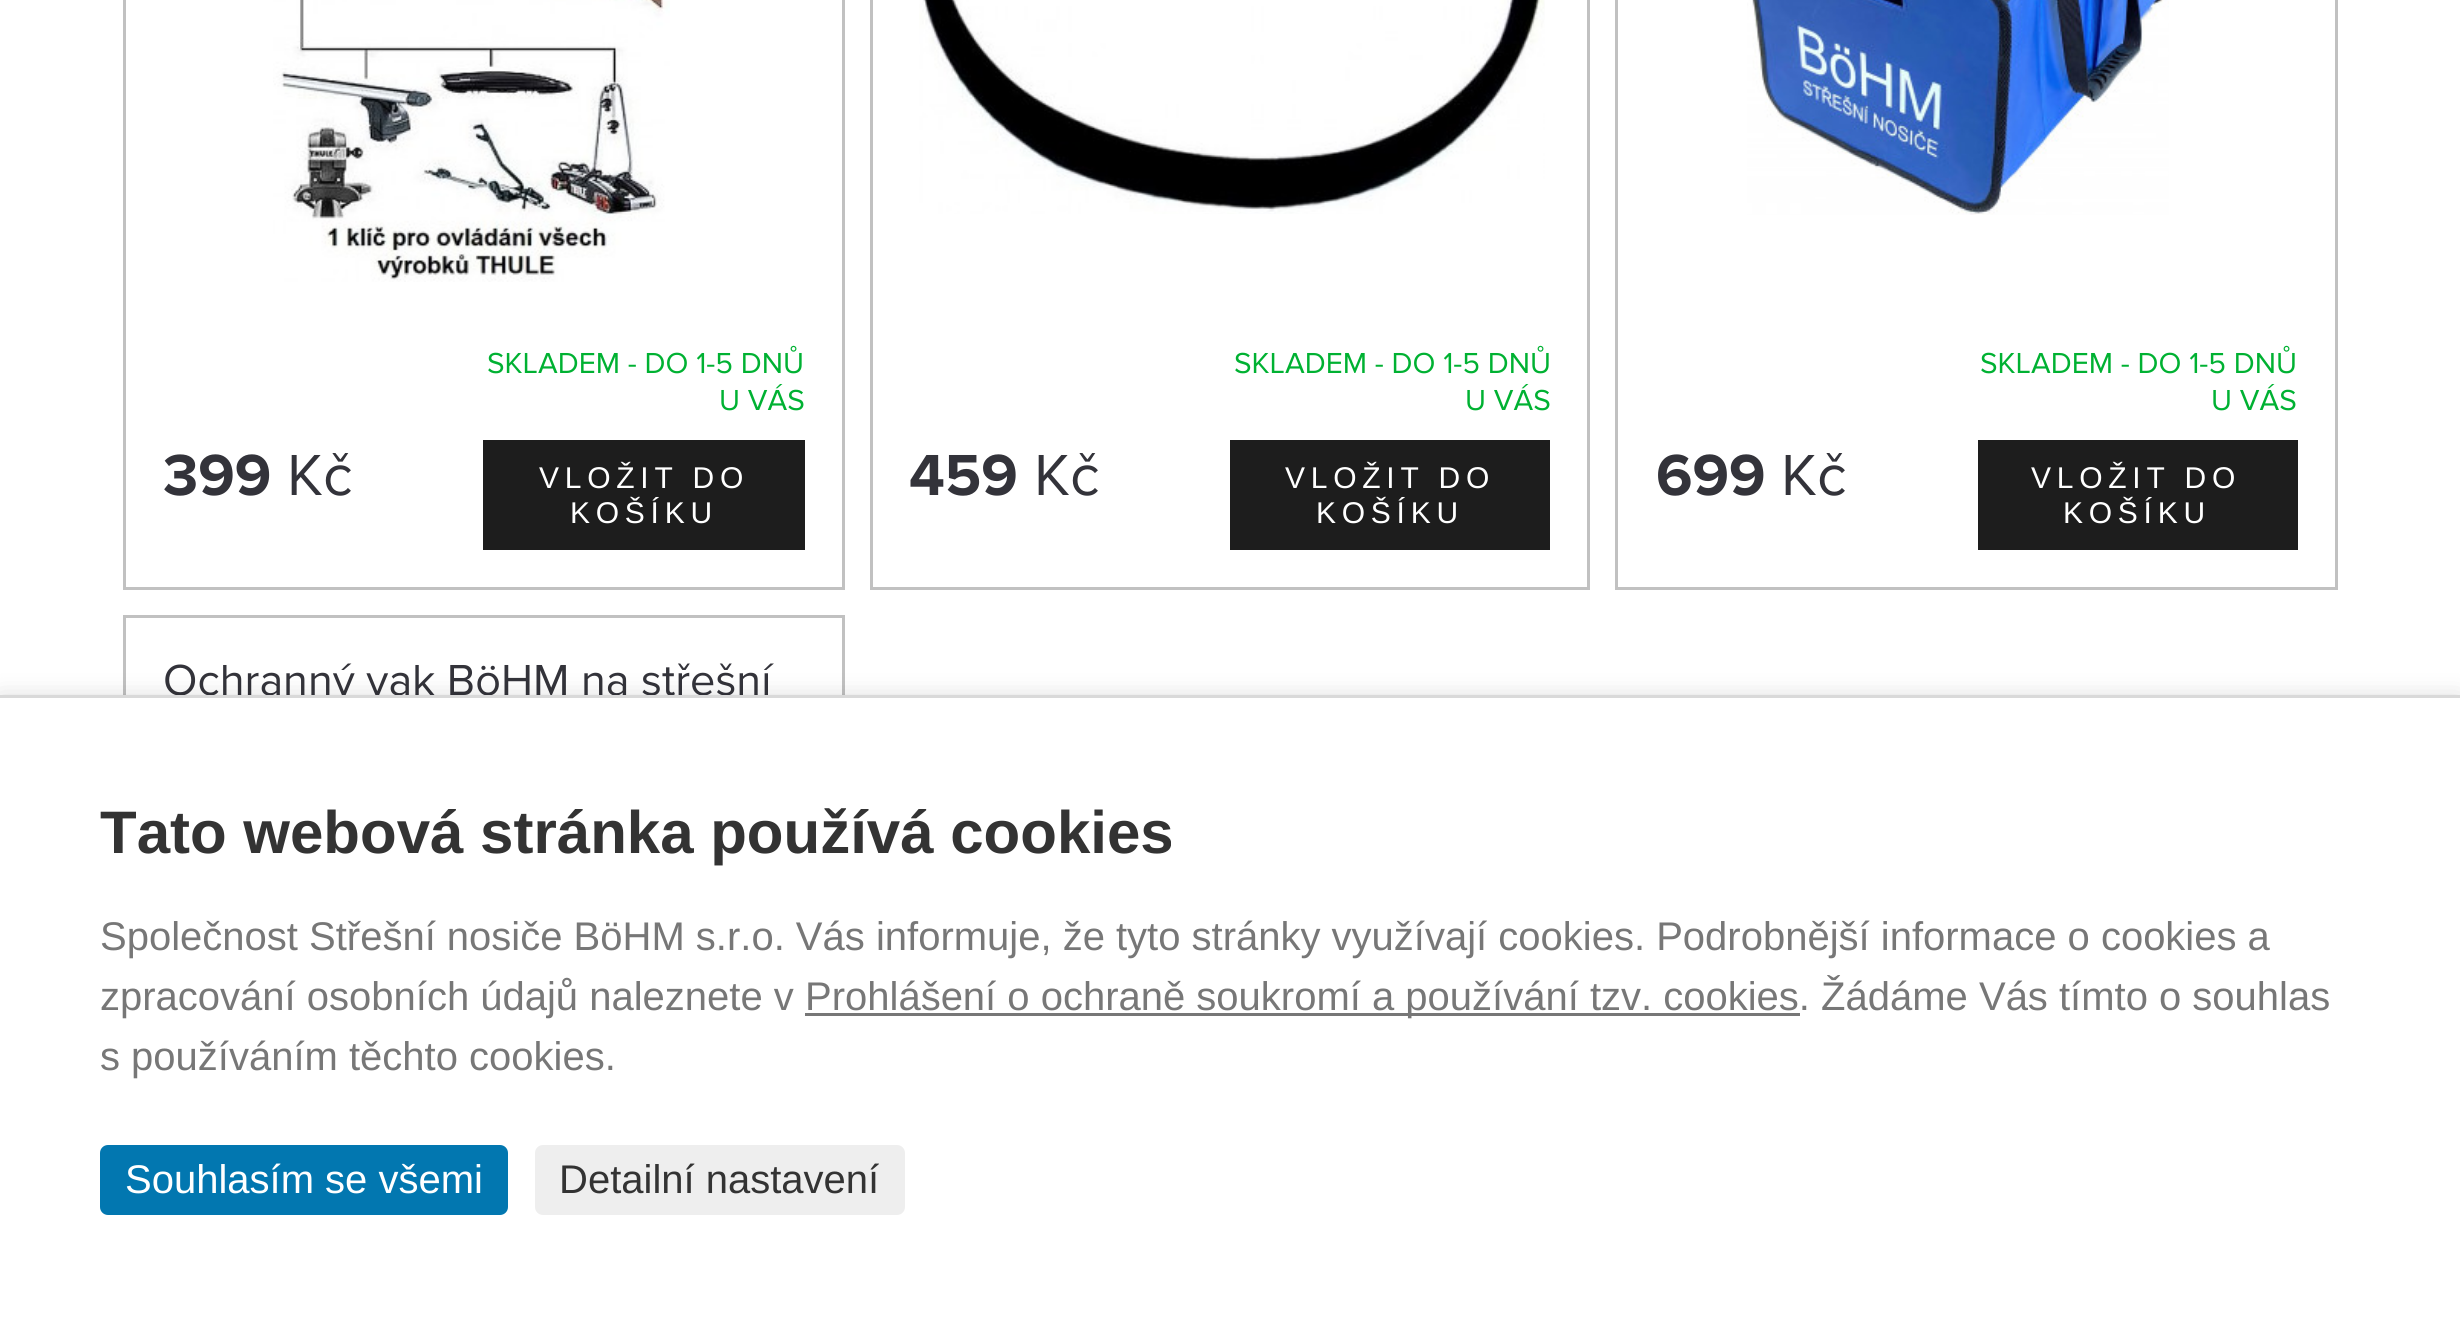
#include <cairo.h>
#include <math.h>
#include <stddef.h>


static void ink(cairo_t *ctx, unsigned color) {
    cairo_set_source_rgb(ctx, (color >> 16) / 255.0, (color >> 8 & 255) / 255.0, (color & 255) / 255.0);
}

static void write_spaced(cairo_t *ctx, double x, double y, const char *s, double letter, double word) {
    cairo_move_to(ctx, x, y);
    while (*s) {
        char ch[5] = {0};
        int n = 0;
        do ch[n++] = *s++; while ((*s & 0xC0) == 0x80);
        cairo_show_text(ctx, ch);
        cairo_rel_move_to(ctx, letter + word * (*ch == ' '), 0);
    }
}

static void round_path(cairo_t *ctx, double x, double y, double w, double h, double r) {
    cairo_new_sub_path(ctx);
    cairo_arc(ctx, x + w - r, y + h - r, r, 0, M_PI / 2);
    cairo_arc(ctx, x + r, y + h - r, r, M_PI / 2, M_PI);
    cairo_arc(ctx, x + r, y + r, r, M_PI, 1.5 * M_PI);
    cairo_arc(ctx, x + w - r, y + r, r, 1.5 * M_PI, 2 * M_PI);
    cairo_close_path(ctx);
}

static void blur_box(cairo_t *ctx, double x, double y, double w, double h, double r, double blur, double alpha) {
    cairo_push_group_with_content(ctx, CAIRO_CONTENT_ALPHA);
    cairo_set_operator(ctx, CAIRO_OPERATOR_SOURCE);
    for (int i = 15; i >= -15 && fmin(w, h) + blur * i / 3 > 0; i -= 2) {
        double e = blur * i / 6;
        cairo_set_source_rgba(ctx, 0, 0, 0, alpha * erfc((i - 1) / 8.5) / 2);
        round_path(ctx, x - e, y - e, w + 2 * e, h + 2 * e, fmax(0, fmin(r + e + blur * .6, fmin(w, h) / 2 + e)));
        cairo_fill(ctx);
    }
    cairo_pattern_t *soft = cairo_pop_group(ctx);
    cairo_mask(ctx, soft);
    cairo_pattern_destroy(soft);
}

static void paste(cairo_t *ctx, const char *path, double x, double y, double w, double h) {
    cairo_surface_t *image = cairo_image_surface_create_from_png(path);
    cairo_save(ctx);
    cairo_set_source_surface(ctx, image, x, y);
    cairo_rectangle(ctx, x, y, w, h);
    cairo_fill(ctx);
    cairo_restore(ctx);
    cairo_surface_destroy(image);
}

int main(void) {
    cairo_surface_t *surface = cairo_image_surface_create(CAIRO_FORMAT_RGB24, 2460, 1321);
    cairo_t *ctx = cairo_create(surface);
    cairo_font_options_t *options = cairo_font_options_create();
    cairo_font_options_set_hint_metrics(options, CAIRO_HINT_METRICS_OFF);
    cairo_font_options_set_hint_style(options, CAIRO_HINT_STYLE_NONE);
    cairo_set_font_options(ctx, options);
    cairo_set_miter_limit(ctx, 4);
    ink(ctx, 0xFFFFFF);
    cairo_paint(ctx);
    cairo_rectangle(ctx, 124.5, -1.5, 719, 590);
    ink(ctx, 0xC1C1C1);
    cairo_set_line_width(ctx, 3);
    cairo_stroke(ctx);
    paste(ctx, "media/1.png", 273, 0, 397, 282);
    cairo_select_font_face(ctx, "Proxima Nova", CAIRO_FONT_SLANT_NORMAL, CAIRO_FONT_WEIGHT_NORMAL);
    cairo_set_font_size(ctx, 30);
    ink(ctx, 0x00B132);
    cairo_move_to(ctx, 487, 373);
    cairo_show_text(ctx, "SKLADEM - DO 1-5 DNŮ");
    cairo_move_to(ctx, 719, 410);
    cairo_show_text(ctx, "U VÁS");
    cairo_select_font_face(ctx, "Proxima Nova", CAIRO_FONT_SLANT_NORMAL, CAIRO_FONT_WEIGHT_BOLD);
    cairo_set_font_size(ctx, 60);
    ink(ctx, 0x33333A);
    cairo_move_to(ctx, 163, 495);
    cairo_show_text(ctx, "399");
    cairo_select_font_face(ctx, "Proxima Nova", CAIRO_FONT_SLANT_NORMAL, CAIRO_FONT_WEIGHT_NORMAL);
    cairo_move_to(ctx, 287, 495);
    cairo_show_text(ctx, "Kč");
    ink(ctx, 0x1D1D1D);
    cairo_rectangle(ctx, 483, 440, 322, 110);
    cairo_fill(ctx);
    cairo_select_font_face(ctx, "Liberation Sans", CAIRO_FONT_SLANT_NORMAL, CAIRO_FONT_WEIGHT_NORMAL);
    cairo_set_font_size(ctx, 30);
    ink(ctx, 0xFFFFFF);
    write_spaced(ctx, 539, 488, "VLOŽIT DO", 5.75, 0);
    write_spaced(ctx, 570, 523, "KOŠÍKU", 5.75, 0);
    cairo_rectangle(ctx, 871.5, -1.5, 717, 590);
    ink(ctx, 0xC1C1C1);
    cairo_stroke(ctx);
    paste(ctx, "media/2.png", 919, 0, 626, 214);
    cairo_select_font_face(ctx, "Proxima Nova", CAIRO_FONT_SLANT_NORMAL, CAIRO_FONT_WEIGHT_NORMAL);
    ink(ctx, 0x00B132);
    cairo_move_to(ctx, 1234, 373);
    cairo_show_text(ctx, "SKLADEM - DO 1-5 DNŮ");
    cairo_move_to(ctx, 1465, 410);
    cairo_show_text(ctx, "U VÁS");
    cairo_select_font_face(ctx, "Proxima Nova", CAIRO_FONT_SLANT_NORMAL, CAIRO_FONT_WEIGHT_BOLD);
    cairo_set_font_size(ctx, 60);
    ink(ctx, 0x33333A);
    cairo_move_to(ctx, 909, 495);
    cairo_show_text(ctx, "459");
    cairo_select_font_face(ctx, "Proxima Nova", CAIRO_FONT_SLANT_NORMAL, CAIRO_FONT_WEIGHT_NORMAL);
    cairo_move_to(ctx, 1034, 495);
    cairo_show_text(ctx, "Kč");
    ink(ctx, 0x1D1D1D);
    cairo_rectangle(ctx, 1230, 440, 320, 110);
    cairo_fill(ctx);
    cairo_select_font_face(ctx, "Liberation Sans", CAIRO_FONT_SLANT_NORMAL, CAIRO_FONT_WEIGHT_NORMAL);
    cairo_set_font_size(ctx, 30);
    ink(ctx, 0xFFFFFF);
    write_spaced(ctx, 1285, 488, "VLOŽIT DO", 5.75, 0);
    write_spaced(ctx, 1316, 523, "KOŠÍKU", 5.75, 0);
    cairo_rectangle(ctx, 1616.5, -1.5, 720, 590);
    ink(ctx, 0xC1C1C1);
    cairo_stroke(ctx);
    paste(ctx, "media/3.png", 1747, 0, 422, 215);
    cairo_select_font_face(ctx, "Proxima Nova", CAIRO_FONT_SLANT_NORMAL, CAIRO_FONT_WEIGHT_NORMAL);
    ink(ctx, 0x00B132);
    cairo_move_to(ctx, 1980, 373);
    cairo_show_text(ctx, "SKLADEM - DO 1-5 DNŮ");
    cairo_move_to(ctx, 2211, 410);
    cairo_show_text(ctx, "U VÁS");
    cairo_select_font_face(ctx, "Proxima Nova", CAIRO_FONT_SLANT_NORMAL, CAIRO_FONT_WEIGHT_BOLD);
    cairo_set_font_size(ctx, 60);
    ink(ctx, 0x33333A);
    cairo_move_to(ctx, 1656, 495);
    cairo_show_text(ctx, "699");
    cairo_select_font_face(ctx, "Proxima Nova", CAIRO_FONT_SLANT_NORMAL, CAIRO_FONT_WEIGHT_NORMAL);
    cairo_move_to(ctx, 1781, 495);
    cairo_show_text(ctx, "Kč");
    ink(ctx, 0x1D1D1D);
    cairo_rectangle(ctx, 1978, 440, 320, 110);
    cairo_fill(ctx);
    cairo_select_font_face(ctx, "Liberation Sans", CAIRO_FONT_SLANT_NORMAL, CAIRO_FONT_WEIGHT_NORMAL);
    cairo_set_font_size(ctx, 30);
    ink(ctx, 0xFFFFFF);
    write_spaced(ctx, 2031, 488, "VLOŽIT DO", 5.75, 0);
    write_spaced(ctx, 2063, 523, "KOŠÍKU", 5.75, 0);
    cairo_rectangle(ctx, 124.5, 616.5, 719, 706);
    ink(ctx, 0xC1C1C1);
    cairo_stroke(ctx);
    cairo_select_font_face(ctx, "Proxima Nova", CAIRO_FONT_SLANT_NORMAL, CAIRO_FONT_WEIGHT_NORMAL);
    cairo_set_font_size(ctx, 45);
    ink(ctx, 0x33333A);
    cairo_move_to(ctx, 163, 695);
    cairo_show_text(ctx, "Ochranný vak BöHM na střešní");
    ink(ctx, 0x000000);
    blur_box(ctx, 0, 700, 2460, 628, 0, 12.5, 0.2);
    ink(ctx, 0xFFFFFF);
    cairo_rectangle(ctx, 0, 698, 2460, 623);
    cairo_fill(ctx);
    ink(ctx, 0xD9D9D9);
    cairo_rectangle(ctx, 0, 695, 2460, 3);
    cairo_fill(ctx);
    cairo_select_font_face(ctx, "Liberation Sans", CAIRO_FONT_SLANT_NORMAL, CAIRO_FONT_WEIGHT_BOLD);
    cairo_set_font_size(ctx, 60);
    ink(ctx, 0x333333);
    cairo_move_to(ctx, 100, 853);
    cairo_show_text(ctx, "Tato webová stránka používá cookies");
    cairo_select_font_face(ctx, "Liberation Sans", CAIRO_FONT_SLANT_NORMAL, CAIRO_FONT_WEIGHT_NORMAL);
    cairo_set_font_size(ctx, 40);
    ink(ctx, 0x777777);
    cairo_move_to(ctx, 100, 950);
    cairo_show_text(ctx, "Společnost Střešní nosiče BöHM s.r.o. Vás informuje, že tyto stránky využívají cookies. Podrobnější informace o cookies a");
    cairo_move_to(ctx, 100, 1010);
    cairo_show_text(ctx, "zpracování osobních údajů naleznete v");
    cairo_rectangle(ctx, 805, 1013, 995, 3);
    cairo_fill(ctx);
    cairo_move_to(ctx, 805, 1010);
    cairo_show_text(ctx, "Prohlášení o ochraně soukromí a používání tzv. cookies. Žádáme Vás tímto o souhlas");
    cairo_move_to(ctx, 100, 1070);
    cairo_show_text(ctx, "s používáním těchto cookies.");
    ink(ctx, 0x0277B0);
    round_path(ctx, 100, 1145, 408, 70, 8);
    cairo_fill(ctx);
    ink(ctx, 0xFFFFFF);
    cairo_move_to(ctx, 125, 1193);
    cairo_show_text(ctx, "Souhlasím se všemi");
    ink(ctx, 0xEEEEEE);
    round_path(ctx, 535, 1145, 370, 70, 8);
    cairo_fill(ctx);
    ink(ctx, 0x333333);
    cairo_move_to(ctx, 559, 1193);
    cairo_show_text(ctx, "Detailní nastavení");
    cairo_surface_write_to_png(surface, "image.png");
    cairo_font_options_destroy(options);
    cairo_destroy(ctx);
    cairo_surface_destroy(surface);
    return 0;
}
